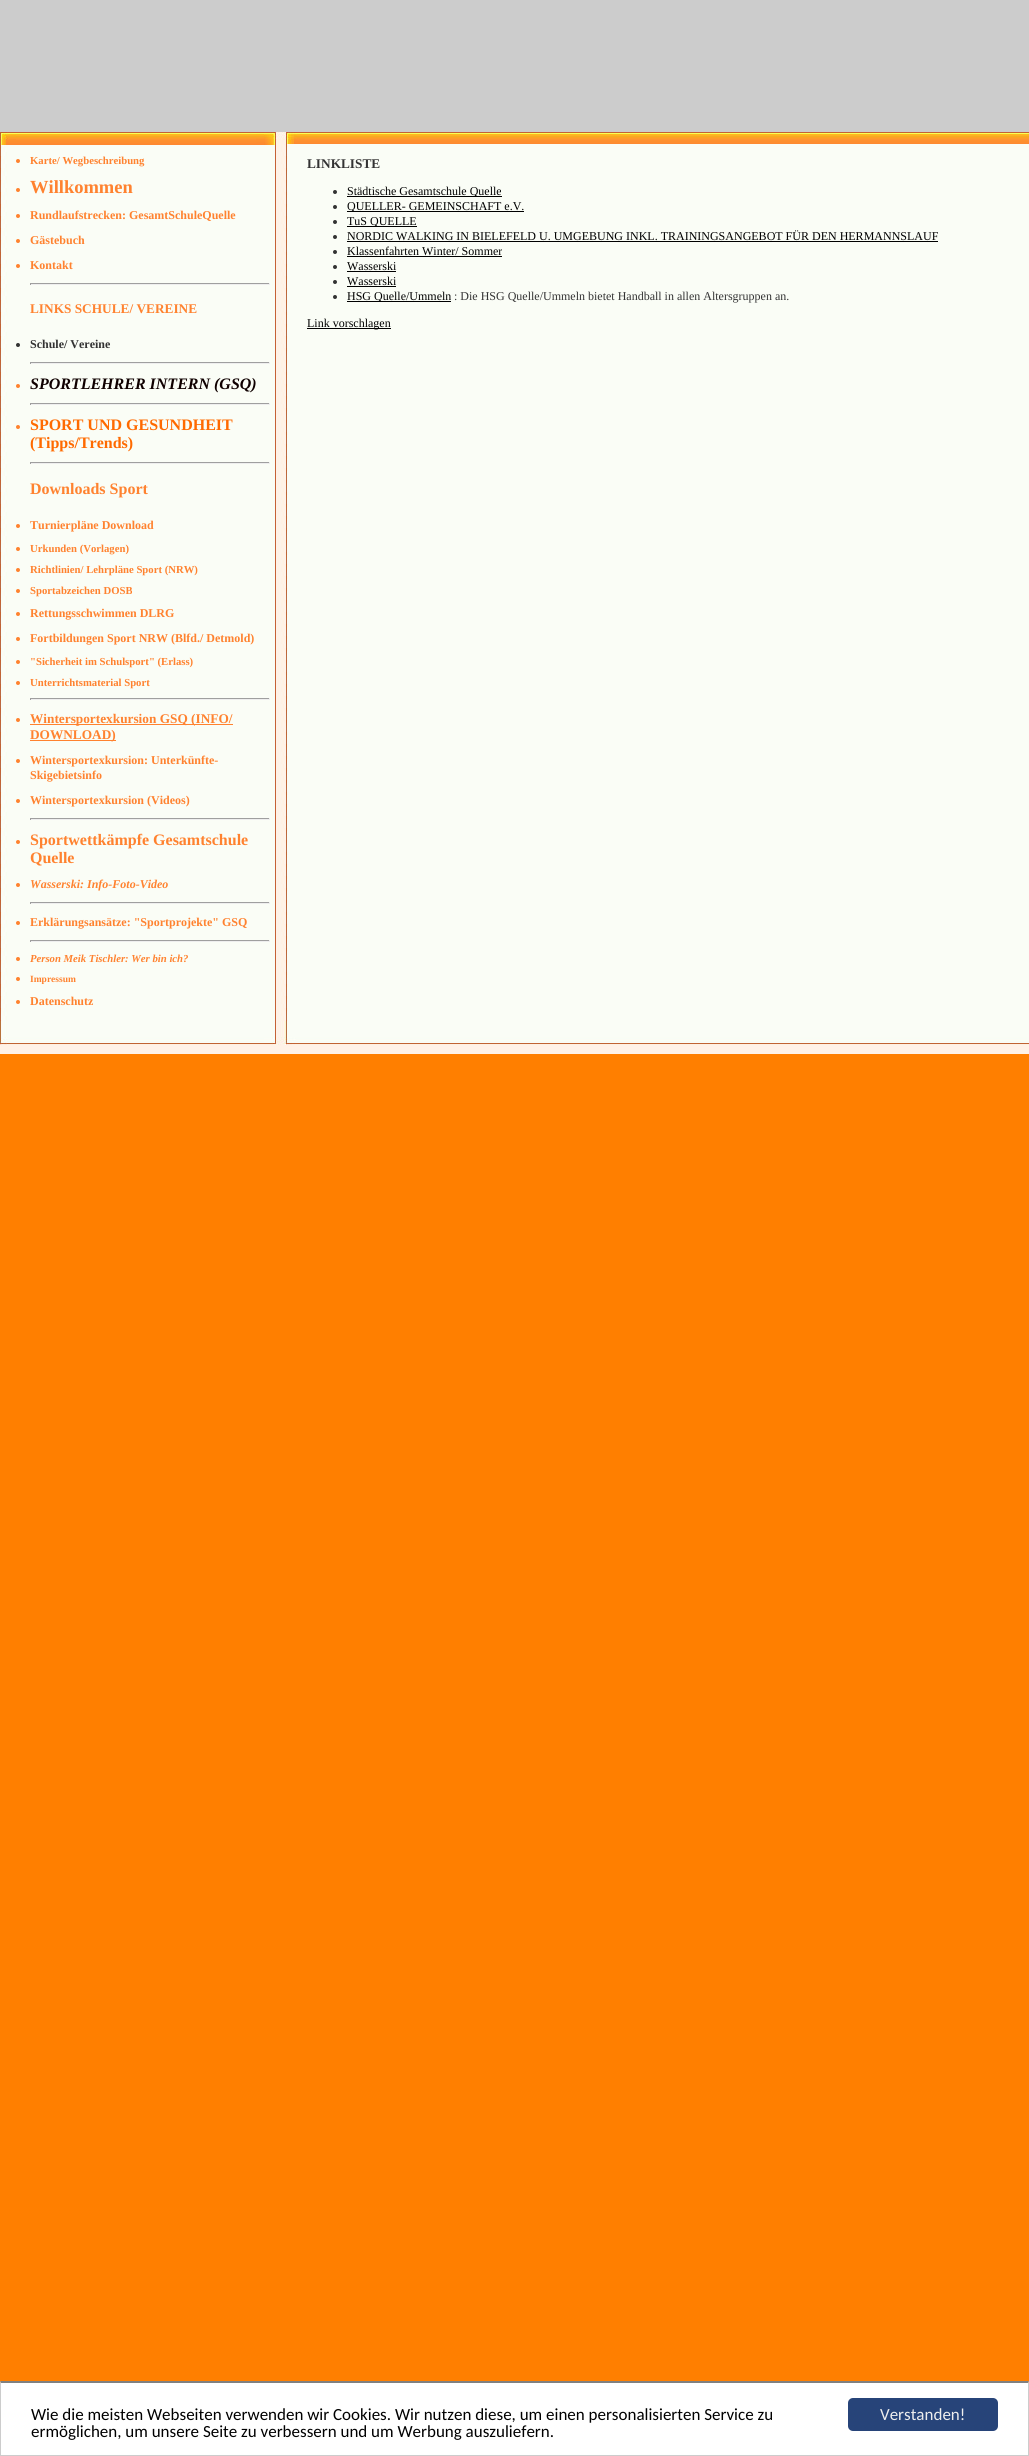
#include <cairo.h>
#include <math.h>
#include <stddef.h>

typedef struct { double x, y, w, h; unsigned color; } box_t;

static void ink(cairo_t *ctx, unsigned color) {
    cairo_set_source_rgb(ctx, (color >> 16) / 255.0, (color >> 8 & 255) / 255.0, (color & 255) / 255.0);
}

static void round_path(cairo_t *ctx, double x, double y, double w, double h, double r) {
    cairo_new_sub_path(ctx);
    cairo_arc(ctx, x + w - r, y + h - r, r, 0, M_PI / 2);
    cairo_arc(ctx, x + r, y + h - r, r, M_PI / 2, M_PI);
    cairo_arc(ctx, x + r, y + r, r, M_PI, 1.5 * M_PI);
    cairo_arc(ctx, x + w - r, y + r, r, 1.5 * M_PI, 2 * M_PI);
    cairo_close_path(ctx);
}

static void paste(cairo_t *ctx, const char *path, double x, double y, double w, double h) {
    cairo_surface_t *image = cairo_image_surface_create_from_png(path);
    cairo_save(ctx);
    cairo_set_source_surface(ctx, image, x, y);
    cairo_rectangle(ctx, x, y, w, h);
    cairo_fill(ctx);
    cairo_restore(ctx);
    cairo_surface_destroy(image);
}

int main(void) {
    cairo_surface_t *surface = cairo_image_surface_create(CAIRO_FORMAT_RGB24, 1029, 2456);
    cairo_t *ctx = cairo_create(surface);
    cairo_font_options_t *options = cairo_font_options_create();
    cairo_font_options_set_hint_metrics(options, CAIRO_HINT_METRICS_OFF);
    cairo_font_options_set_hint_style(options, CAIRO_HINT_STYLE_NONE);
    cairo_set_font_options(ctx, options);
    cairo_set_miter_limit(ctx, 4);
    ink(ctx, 0xFF7F00);
    cairo_paint(ctx);
    ink(ctx, 0xCCCCCC);
    cairo_rectangle(ctx, 0, 0, 1029, 132);
    cairo_fill(ctx);
    paste(ctx, "media/1.png", 0, 132, 1029, 889);
    paste(ctx, "media/2.png", 0, 132, 280, 13);
    ink(ctx, 0xFF822F);
    cairo_arc(ctx, 18, 161, 2, 0, 2 * M_PI);
    cairo_fill(ctx);
    cairo_select_font_face(ctx, "Liberation Serif", CAIRO_FONT_SLANT_NORMAL, CAIRO_FONT_WEIGHT_BOLD);
    cairo_set_font_size(ctx, 10.7);
    cairo_move_to(ctx, 30, 164);
    cairo_show_text(ctx, "Karte/ Wegbeschreibung");
    cairo_new_path(ctx);
    cairo_arc(ctx, 18, 190, 2, 0, 2 * M_PI);
    cairo_fill(ctx);
    cairo_set_font_size(ctx, 18.5);
    cairo_move_to(ctx, 30, 193);
    cairo_show_text(ctx, "Willkommen");
    cairo_new_path(ctx);
    cairo_arc(ctx, 18, 216, 2, 0, 2 * M_PI);
    cairo_fill(ctx);
    cairo_set_font_size(ctx, 12);
    cairo_move_to(ctx, 30, 219);
    cairo_show_text(ctx, "Rundlaufstrecken: GesamtSchuleQuelle");
    cairo_new_path(ctx);
    cairo_arc(ctx, 18, 241, 2, 0, 2 * M_PI);
    cairo_fill(ctx);
    cairo_move_to(ctx, 30, 244);
    cairo_show_text(ctx, "Gästebuch");
    cairo_new_path(ctx);
    cairo_arc(ctx, 18, 266, 2, 0, 2 * M_PI);
    cairo_fill(ctx);
    cairo_move_to(ctx, 30, 269);
    cairo_show_text(ctx, "Kontakt");
    {
        static const box_t items[] = {
            {30, 283, 240, 1, 0x9F9F9F},
            {269, 283, 1, 2, 0xEEEEEE},
            {30, 284, 240, 1, 0xEEEEEE},
            {30, 283, 1, 2, 0x9F9F9F},
        };
        for (size_t i = 0; i < sizeof items / sizeof *items; i++) {
            ink(ctx, items[i].color);
            cairo_rectangle(ctx, items[i].x, items[i].y, items[i].w, items[i].h);
            cairo_fill(ctx);
        }
    }
    cairo_set_font_size(ctx, 13.3);
    ink(ctx, 0xFF822F);
    cairo_move_to(ctx, 30, 313);
    cairo_show_text(ctx, "LINKS SCHULE/ VEREINE");
    ink(ctx, 0x333333);
    cairo_new_path(ctx);
    cairo_arc(ctx, 18, 345, 2, 0, 2 * M_PI);
    cairo_fill(ctx);
    cairo_set_font_size(ctx, 12);
    cairo_move_to(ctx, 30, 348);
    cairo_show_text(ctx, "Schule/ Vereine");
    {
        static const box_t items[] = {
            {30, 362, 240, 1, 0x9F9F9F},
            {269, 362, 1, 2, 0xEEEEEE},
            {30, 363, 240, 1, 0xEEEEEE},
            {30, 362, 1, 2, 0x9F9F9F},
        };
        for (size_t i = 0; i < sizeof items / sizeof *items; i++) {
            ink(ctx, items[i].color);
            cairo_rectangle(ctx, items[i].x, items[i].y, items[i].w, items[i].h);
            cairo_fill(ctx);
        }
    }
    ink(ctx, 0xFF822F);
    cairo_new_path(ctx);
    cairo_arc(ctx, 18, 386, 2, 0, 2 * M_PI);
    cairo_fill(ctx);
    cairo_select_font_face(ctx, "Liberation Serif", CAIRO_FONT_SLANT_ITALIC, CAIRO_FONT_WEIGHT_BOLD);
    cairo_set_font_size(ctx, 16);
    ink(ctx, 0x0F0000);
    cairo_move_to(ctx, 30, 389);
    cairo_show_text(ctx, "SPORTLEHRER INTERN (GSQ)");
    {
        static const box_t items[] = {
            {30, 403, 240, 1, 0x9F9F9F},
            {269, 403, 1, 2, 0xEEEEEE},
            {30, 404, 240, 1, 0xEEEEEE},
            {30, 403, 1, 2, 0x9F9F9F},
        };
        for (size_t i = 0; i < sizeof items / sizeof *items; i++) {
            ink(ctx, items[i].color);
            cairo_rectangle(ctx, items[i].x, items[i].y, items[i].w, items[i].h);
            cairo_fill(ctx);
        }
    }
    ink(ctx, 0xFF822F);
    cairo_new_path(ctx);
    cairo_arc(ctx, 18, 427, 2, 0, 2 * M_PI);
    cairo_fill(ctx);
    cairo_select_font_face(ctx, "Liberation Serif", CAIRO_FONT_SLANT_NORMAL, CAIRO_FONT_WEIGHT_BOLD);
    ink(ctx, 0xFF6A00);
    cairo_move_to(ctx, 30, 430);
    cairo_show_text(ctx, "SPORT UND GESUNDHEIT");
    cairo_move_to(ctx, 30, 448);
    cairo_show_text(ctx, "(Tipps/Trends)");
    {
        static const box_t items[] = {
            {30, 462, 240, 1, 0x9F9F9F},
            {269, 462, 1, 2, 0xEEEEEE},
            {30, 463, 240, 1, 0xEEEEEE},
            {30, 462, 1, 2, 0x9F9F9F},
        };
        for (size_t i = 0; i < sizeof items / sizeof *items; i++) {
            ink(ctx, items[i].color);
            cairo_rectangle(ctx, items[i].x, items[i].y, items[i].w, items[i].h);
            cairo_fill(ctx);
        }
    }
    ink(ctx, 0xFF822F);
    cairo_move_to(ctx, 30, 494);
    cairo_show_text(ctx, "Downloads Sport");
    cairo_new_path(ctx);
    cairo_arc(ctx, 18, 526, 2, 0, 2 * M_PI);
    cairo_fill(ctx);
    cairo_set_font_size(ctx, 12);
    cairo_move_to(ctx, 30, 529);
    cairo_show_text(ctx, "Turnierpläne Download");
    cairo_new_path(ctx);
    cairo_arc(ctx, 18, 549, 2, 0, 2 * M_PI);
    cairo_fill(ctx);
    cairo_set_font_size(ctx, 10.7);
    cairo_move_to(ctx, 30, 552);
    cairo_show_text(ctx, "Urkunden (Vorlagen)");
    cairo_new_path(ctx);
    cairo_arc(ctx, 18, 570, 2, 0, 2 * M_PI);
    cairo_fill(ctx);
    cairo_move_to(ctx, 30, 573);
    cairo_show_text(ctx, "Richtlinien/ Lehrpläne Sport (NRW)");
    cairo_new_path(ctx);
    cairo_arc(ctx, 18, 591, 2, 0, 2 * M_PI);
    cairo_fill(ctx);
    cairo_move_to(ctx, 30, 594);
    cairo_show_text(ctx, "Sportabzeichen DOSB");
    cairo_new_path(ctx);
    cairo_arc(ctx, 18, 614, 2, 0, 2 * M_PI);
    cairo_fill(ctx);
    cairo_set_font_size(ctx, 12);
    cairo_move_to(ctx, 30, 617);
    cairo_show_text(ctx, "Rettungsschwimmen DLRG");
    cairo_new_path(ctx);
    cairo_arc(ctx, 18, 639, 2, 0, 2 * M_PI);
    cairo_fill(ctx);
    cairo_move_to(ctx, 30, 642);
    cairo_show_text(ctx, "Fortbildungen Sport NRW (Blfd./ Detmold)");
    cairo_new_path(ctx);
    cairo_arc(ctx, 18, 662, 2, 0, 2 * M_PI);
    cairo_fill(ctx);
    cairo_set_font_size(ctx, 10.7);
    cairo_move_to(ctx, 30, 665);
    cairo_show_text(ctx, "\"Sicherheit im Schulsport\" (Erlass)");
    cairo_new_path(ctx);
    cairo_arc(ctx, 18, 683, 2, 0, 2 * M_PI);
    cairo_fill(ctx);
    cairo_move_to(ctx, 30, 686);
    cairo_show_text(ctx, "Unterrichtsmaterial Sport");
    {
        static const box_t items[] = {
            {30, 698, 240, 1, 0x9F9F9F},
            {269, 698, 1, 2, 0xEEEEEE},
            {30, 699, 240, 1, 0xEEEEEE},
            {30, 698, 1, 2, 0x9F9F9F},
        };
        for (size_t i = 0; i < sizeof items / sizeof *items; i++) {
            ink(ctx, items[i].color);
            cairo_rectangle(ctx, items[i].x, items[i].y, items[i].w, items[i].h);
            cairo_fill(ctx);
        }
    }
    ink(ctx, 0xFF822F);
    cairo_new_path(ctx);
    cairo_arc(ctx, 18, 720, 2, 0, 2 * M_PI);
    cairo_fill(ctx);
    cairo_rectangle(ctx, 30, 724, 203, 1);
    cairo_fill(ctx);
    cairo_set_font_size(ctx, 13.3);
    cairo_move_to(ctx, 30, 723);
    cairo_show_text(ctx, "Wintersportexkursion GSQ (INFO/");
    cairo_rectangle(ctx, 30, 740, 86, 1);
    cairo_fill(ctx);
    cairo_move_to(ctx, 30, 739);
    cairo_show_text(ctx, "DOWNLOAD)");
    cairo_new_path(ctx);
    cairo_arc(ctx, 18, 761, 2, 0, 2 * M_PI);
    cairo_fill(ctx);
    cairo_set_font_size(ctx, 12);
    cairo_move_to(ctx, 30, 764);
    cairo_show_text(ctx, "Wintersportexkursion: Unterkünfte-");
    cairo_move_to(ctx, 30, 779);
    cairo_show_text(ctx, "Skigebietsinfo");
    cairo_new_path(ctx);
    cairo_arc(ctx, 18, 801, 2, 0, 2 * M_PI);
    cairo_fill(ctx);
    cairo_move_to(ctx, 30, 804);
    cairo_show_text(ctx, "Wintersportexkursion (Videos)");
    {
        static const box_t items[] = {
            {30, 818, 240, 1, 0x9F9F9F},
            {269, 818, 1, 2, 0xEEEEEE},
            {30, 819, 240, 1, 0xEEEEEE},
            {30, 818, 1, 2, 0x9F9F9F},
        };
        for (size_t i = 0; i < sizeof items / sizeof *items; i++) {
            ink(ctx, items[i].color);
            cairo_rectangle(ctx, items[i].x, items[i].y, items[i].w, items[i].h);
            cairo_fill(ctx);
        }
    }
    ink(ctx, 0xFF822F);
    cairo_new_path(ctx);
    cairo_arc(ctx, 18, 842, 2, 0, 2 * M_PI);
    cairo_fill(ctx);
    cairo_set_font_size(ctx, 16);
    cairo_move_to(ctx, 30, 845);
    cairo_show_text(ctx, "Sportwettkämpfe Gesamtschule");
    cairo_move_to(ctx, 30, 863);
    cairo_show_text(ctx, "Quelle");
    cairo_new_path(ctx);
    cairo_arc(ctx, 18, 885, 2, 0, 2 * M_PI);
    cairo_fill(ctx);
    cairo_select_font_face(ctx, "Liberation Serif", CAIRO_FONT_SLANT_ITALIC, CAIRO_FONT_WEIGHT_BOLD);
    cairo_set_font_size(ctx, 12);
    cairo_move_to(ctx, 30, 888);
    cairo_show_text(ctx, "Wasserski: Info-Foto-Video");
    {
        static const box_t items[] = {
            {30, 902, 240, 1, 0x9F9F9F},
            {269, 902, 1, 2, 0xEEEEEE},
            {30, 903, 240, 1, 0xEEEEEE},
            {30, 902, 1, 2, 0x9F9F9F},
        };
        for (size_t i = 0; i < sizeof items / sizeof *items; i++) {
            ink(ctx, items[i].color);
            cairo_rectangle(ctx, items[i].x, items[i].y, items[i].w, items[i].h);
            cairo_fill(ctx);
        }
    }
    ink(ctx, 0xFF822F);
    cairo_new_path(ctx);
    cairo_arc(ctx, 18, 923, 2, 0, 2 * M_PI);
    cairo_fill(ctx);
    cairo_select_font_face(ctx, "Liberation Serif", CAIRO_FONT_SLANT_NORMAL, CAIRO_FONT_WEIGHT_BOLD);
    cairo_move_to(ctx, 30, 926);
    cairo_show_text(ctx, "Erklärungsansätze: \"Sportprojekte\" GSQ");
    {
        static const box_t items[] = {
            {30, 940, 240, 1, 0x9F9F9F},
            {269, 940, 1, 2, 0xEEEEEE},
            {30, 941, 240, 1, 0xEEEEEE},
            {30, 940, 1, 2, 0x9F9F9F},
        };
        for (size_t i = 0; i < sizeof items / sizeof *items; i++) {
            ink(ctx, items[i].color);
            cairo_rectangle(ctx, items[i].x, items[i].y, items[i].w, items[i].h);
            cairo_fill(ctx);
        }
    }
    ink(ctx, 0xFF822F);
    cairo_new_path(ctx);
    cairo_arc(ctx, 18, 959, 2, 0, 2 * M_PI);
    cairo_fill(ctx);
    cairo_select_font_face(ctx, "Liberation Serif", CAIRO_FONT_SLANT_ITALIC, CAIRO_FONT_WEIGHT_BOLD);
    cairo_set_font_size(ctx, 10.7);
    cairo_move_to(ctx, 30, 962);
    cairo_show_text(ctx, "Person Meik Tischler: Wer bin ich?");
    cairo_new_path(ctx);
    cairo_arc(ctx, 18, 979, 2, 0, 2 * M_PI);
    cairo_fill(ctx);
    cairo_select_font_face(ctx, "Liberation Serif", CAIRO_FONT_SLANT_NORMAL, CAIRO_FONT_WEIGHT_BOLD);
    cairo_set_font_size(ctx, 9.5);
    cairo_move_to(ctx, 30, 982);
    cairo_show_text(ctx, "Impressum");
    cairo_new_path(ctx);
    cairo_arc(ctx, 18, 1002, 2, 0, 2 * M_PI);
    cairo_fill(ctx);
    cairo_set_font_size(ctx, 12);
    cairo_move_to(ctx, 30, 1005);
    cairo_show_text(ctx, "Datenschutz");
    paste(ctx, "media/3.png", 281, 132, 748, 12);
    cairo_set_font_size(ctx, 13.3);
    ink(ctx, 0x333333);
    cairo_move_to(ctx, 307, 168);
    cairo_show_text(ctx, "LINKLISTE");
    cairo_new_path(ctx);
    cairo_arc(ctx, 335, 192, 2, 0, 2 * M_PI);
    cairo_fill(ctx);
    ink(ctx, 0x000000);
    cairo_rectangle(ctx, 347, 196, 155, 1);
    cairo_fill(ctx);
    cairo_select_font_face(ctx, "Liberation Serif", CAIRO_FONT_SLANT_NORMAL, CAIRO_FONT_WEIGHT_NORMAL);
    cairo_set_font_size(ctx, 12);
    cairo_move_to(ctx, 347, 195);
    cairo_show_text(ctx, "Städtische Gesamtschule Quelle");
    ink(ctx, 0x333333);
    cairo_new_path(ctx);
    cairo_arc(ctx, 335, 207, 2, 0, 2 * M_PI);
    cairo_fill(ctx);
    ink(ctx, 0x000000);
    cairo_rectangle(ctx, 347, 211, 177, 1);
    cairo_fill(ctx);
    cairo_move_to(ctx, 347, 210);
    cairo_show_text(ctx, "QUELLER- GEMEINSCHAFT e.V.");
    ink(ctx, 0x333333);
    cairo_new_path(ctx);
    cairo_arc(ctx, 335, 222, 2, 0, 2 * M_PI);
    cairo_fill(ctx);
    ink(ctx, 0x000000);
    cairo_rectangle(ctx, 347, 226, 70, 1);
    cairo_fill(ctx);
    cairo_move_to(ctx, 347, 225);
    cairo_show_text(ctx, "TuS QUELLE");
    ink(ctx, 0x333333);
    cairo_new_path(ctx);
    cairo_arc(ctx, 335, 237, 2, 0, 2 * M_PI);
    cairo_fill(ctx);
    ink(ctx, 0x000000);
    cairo_move_to(ctx, 347, 240);
    cairo_show_text(ctx, "NORDIC WALKING IN BIELEFELD U. UMGEBUNG INKL. TRAININGSANGEBOT FÜR DEN HERMANNSLAUF");
    cairo_rectangle(ctx, 347, 241, 591, 1);
    cairo_fill(ctx);
    ink(ctx, 0x333333);
    cairo_arc(ctx, 335, 252, 2, 0, 2 * M_PI);
    cairo_fill(ctx);
    ink(ctx, 0x000000);
    cairo_move_to(ctx, 347, 255);
    cairo_show_text(ctx, "Klassenfahrten Winter/ Sommer");
    cairo_rectangle(ctx, 347, 256, 155, 1);
    cairo_fill(ctx);
    ink(ctx, 0x333333);
    cairo_arc(ctx, 335, 267, 2, 0, 2 * M_PI);
    cairo_fill(ctx);
    ink(ctx, 0x000000);
    cairo_move_to(ctx, 347, 270);
    cairo_show_text(ctx, "Wasserski");
    cairo_rectangle(ctx, 347, 271, 49, 1);
    cairo_fill(ctx);
    ink(ctx, 0x333333);
    cairo_arc(ctx, 335, 282, 2, 0, 2 * M_PI);
    cairo_fill(ctx);
    ink(ctx, 0x000000);
    cairo_move_to(ctx, 347, 285);
    cairo_show_text(ctx, "Wasserski");
    cairo_rectangle(ctx, 347, 286, 49, 1);
    cairo_fill(ctx);
    ink(ctx, 0x333333);
    cairo_arc(ctx, 335, 297, 2, 0, 2 * M_PI);
    cairo_fill(ctx);
    ink(ctx, 0x000000);
    cairo_rectangle(ctx, 347, 301, 104, 1);
    cairo_fill(ctx);
    cairo_move_to(ctx, 347, 300);
    cairo_show_text(ctx, "HSG Quelle/Ummeln");
    ink(ctx, 0x333333);
    cairo_move_to(ctx, 454, 300);
    cairo_show_text(ctx, ": Die HSG Quelle/Ummeln bietet Handball in allen Altersgruppen an.");
    ink(ctx, 0x000000);
    cairo_rectangle(ctx, 307, 328, 84, 1);
    cairo_fill(ctx);
    cairo_move_to(ctx, 307, 327);
    cairo_show_text(ctx, "Link vorschlagen");
    paste(ctx, "media/4.png", 0, 1021, 1029, 33);
    ink(ctx, 0xFFFFFF);
    cairo_rectangle(ctx, 1, 2383, 1027, 72);
    cairo_fill(ctx);
    ink(ctx, 0x808080);
    cairo_new_path(ctx);
    cairo_move_to(ctx, 0, 2381);
    cairo_line_to(ctx, 1029, 2381);
    cairo_line_to(ctx, 1028, 2383);
    cairo_line_to(ctx, 1, 2383);
    cairo_close_path(ctx);
    cairo_fill(ctx);
    ink(ctx, 0xCCCCCC);
    cairo_new_path(ctx);
    cairo_move_to(ctx, 1029, 2381);
    cairo_line_to(ctx, 1029, 2456);
    cairo_line_to(ctx, 1028, 2455);
    cairo_line_to(ctx, 1028, 2383);
    cairo_close_path(ctx);
    cairo_fill(ctx);
    cairo_rectangle(ctx, 0, 2455, 1029, 1);
    cairo_fill(ctx);
    cairo_new_path(ctx);
    cairo_move_to(ctx, 0, 2456);
    cairo_line_to(ctx, 0, 2381);
    cairo_line_to(ctx, 1, 2383);
    cairo_line_to(ctx, 1, 2455);
    cairo_close_path(ctx);
    cairo_fill(ctx);
    cairo_select_font_face(ctx, "Carlito", CAIRO_FONT_SLANT_NORMAL, CAIRO_FONT_WEIGHT_NORMAL);
    cairo_set_font_size(ctx, 17);
    ink(ctx, 0x000000);
    cairo_move_to(ctx, 31, 2420);
    cairo_show_text(ctx, "Wie die meisten Webseiten verwenden wir Cookies. Wir nutzen diese, um einen personalisierten Service zu");
    cairo_move_to(ctx, 31, 2437);
    cairo_show_text(ctx, "ermöglichen, um unsere Seite zu verbessern und um Werbung auszuliefern.");
    ink(ctx, 0x274479);
    round_path(ctx, 848, 2398, 150, 33, 5);
    cairo_fill(ctx);
    ink(ctx, 0xEEEEEE);
    cairo_move_to(ctx, 880, 2420);
    cairo_show_text(ctx, "Verstanden!");
    cairo_surface_write_to_png(surface, "image.png");
    cairo_font_options_destroy(options);
    cairo_destroy(ctx);
    cairo_surface_destroy(surface);
    return 0;
}
